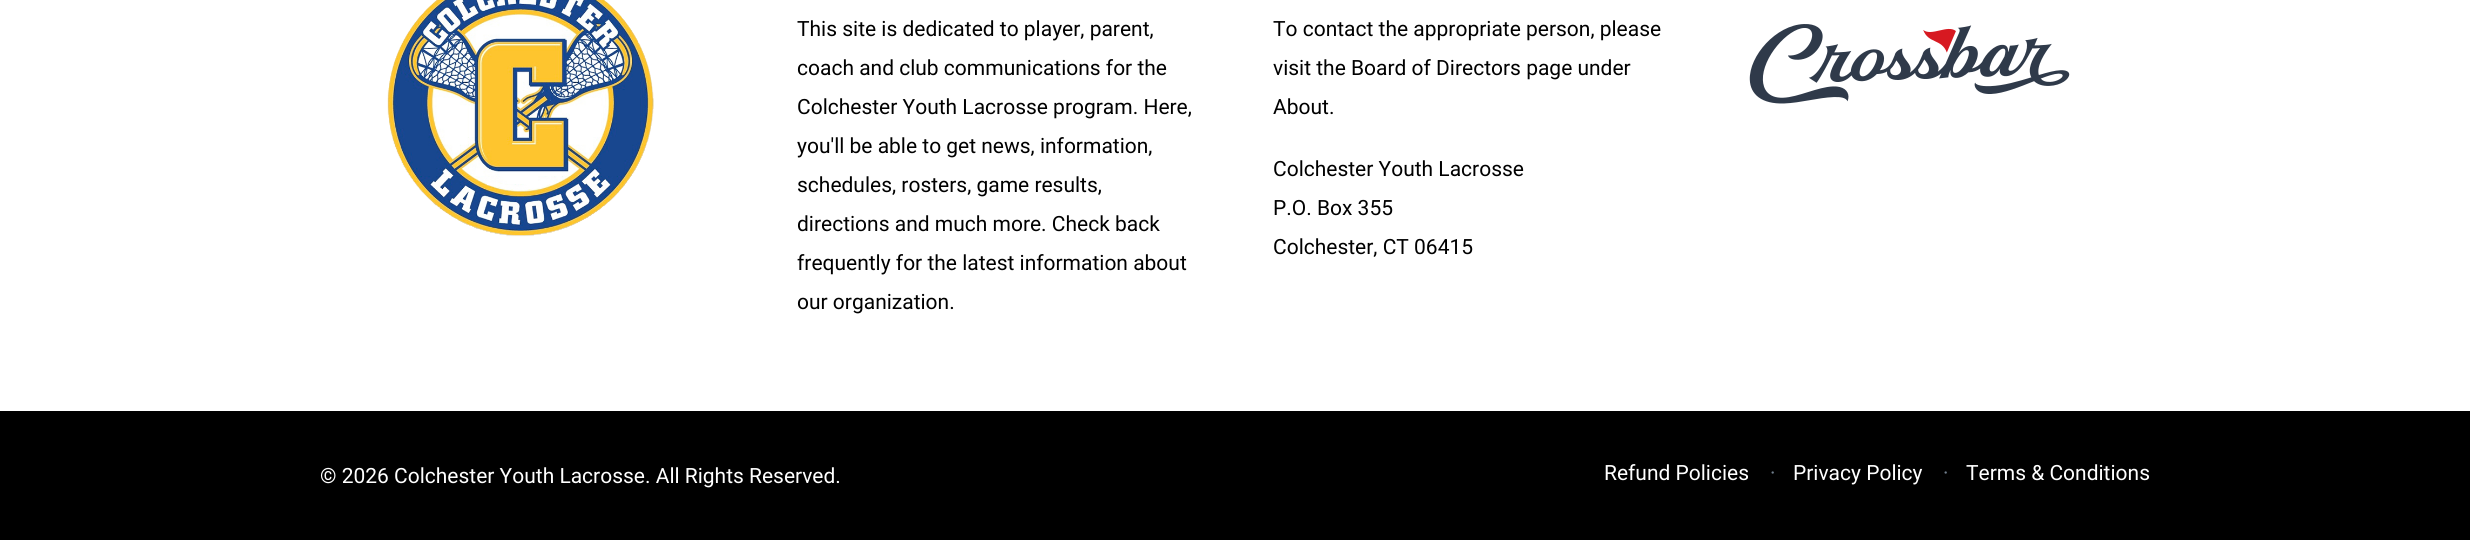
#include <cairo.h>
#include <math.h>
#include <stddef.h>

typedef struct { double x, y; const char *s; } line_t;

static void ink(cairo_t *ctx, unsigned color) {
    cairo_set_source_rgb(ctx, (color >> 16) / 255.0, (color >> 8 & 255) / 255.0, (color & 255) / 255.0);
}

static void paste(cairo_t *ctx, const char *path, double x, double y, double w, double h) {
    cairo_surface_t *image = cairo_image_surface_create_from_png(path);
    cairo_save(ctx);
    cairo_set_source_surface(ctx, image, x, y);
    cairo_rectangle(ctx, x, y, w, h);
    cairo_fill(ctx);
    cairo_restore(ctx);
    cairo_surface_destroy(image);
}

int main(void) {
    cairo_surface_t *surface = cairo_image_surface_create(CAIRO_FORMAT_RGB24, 2470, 540);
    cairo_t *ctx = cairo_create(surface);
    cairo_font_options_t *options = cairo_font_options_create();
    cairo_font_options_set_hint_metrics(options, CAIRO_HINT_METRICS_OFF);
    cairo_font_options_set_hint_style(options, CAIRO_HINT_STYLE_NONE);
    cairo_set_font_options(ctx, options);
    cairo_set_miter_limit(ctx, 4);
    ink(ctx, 0xFFFFFF);
    cairo_paint(ctx);
    paste(ctx, "media/1.png", 387, 0, 267, 237);
    cairo_select_font_face(ctx, "Roboto", CAIRO_FONT_SLANT_NORMAL, CAIRO_FONT_WEIGHT_NORMAL);
    cairo_set_font_size(ctx, 21);
    ink(ctx, 0x000000);
    {
        static const line_t items[] = {
            {797, 36, "This site is dedicated to player, parent,"},
            {797, 75, "coach and club communications for the"},
            {797, 114, "Colchester Youth Lacrosse program. Here,"},
            {797, 153, "you'll be able to get news, information,"},
            {797, 192, "schedules, rosters, game results,"},
            {797, 231, "directions and much more. Check back"},
            {797, 270, "frequently for the latest information about"},
            {797, 309, "our organization."},
            {1273, 36, "To contact the appropriate person, please"},
            {1273, 75, "visit the Board of Directors page under"},
            {1273, 114, "About."},
            {1273, 176, "Colchester Youth Lacrosse"},
            {1273, 215, "P.O. Box 355"},
            {1273, 254, "Colchester, CT 06415"},
        };
        for (size_t i = 0; i < sizeof items / sizeof *items; i++) {
            cairo_move_to(ctx, items[i].x, items[i].y);
            cairo_show_text(ctx, items[i].s);
        }
    }
    paste(ctx, "media/2.png", 1749, 24, 321, 80);
    cairo_rectangle(ctx, 0, 411, 2470, 129);
    cairo_fill(ctx);
    ink(ctx, 0xFFFFFF);
    cairo_move_to(ctx, 320, 483);
    cairo_show_text(ctx, "© 2026 Colchester Youth Lacrosse. All Rights Reserved.");
    cairo_move_to(ctx, 1604, 480);
    cairo_show_text(ctx, "Refund Policies");
    ink(ctx, 0x707E8C);
    cairo_move_to(ctx, 1770, 480);
    cairo_show_text(ctx, "·");
    ink(ctx, 0xFFFFFF);
    cairo_move_to(ctx, 1793, 480);
    cairo_show_text(ctx, "Privacy Policy");
    ink(ctx, 0x707E8C);
    cairo_move_to(ctx, 1943, 480);
    cairo_show_text(ctx, "·");
    ink(ctx, 0xFFFFFF);
    cairo_move_to(ctx, 1966, 480);
    cairo_show_text(ctx, "Terms & Conditions");
    cairo_surface_write_to_png(surface, "image.png");
    cairo_font_options_destroy(options);
    cairo_destroy(ctx);
    cairo_surface_destroy(surface);
    return 0;
}
